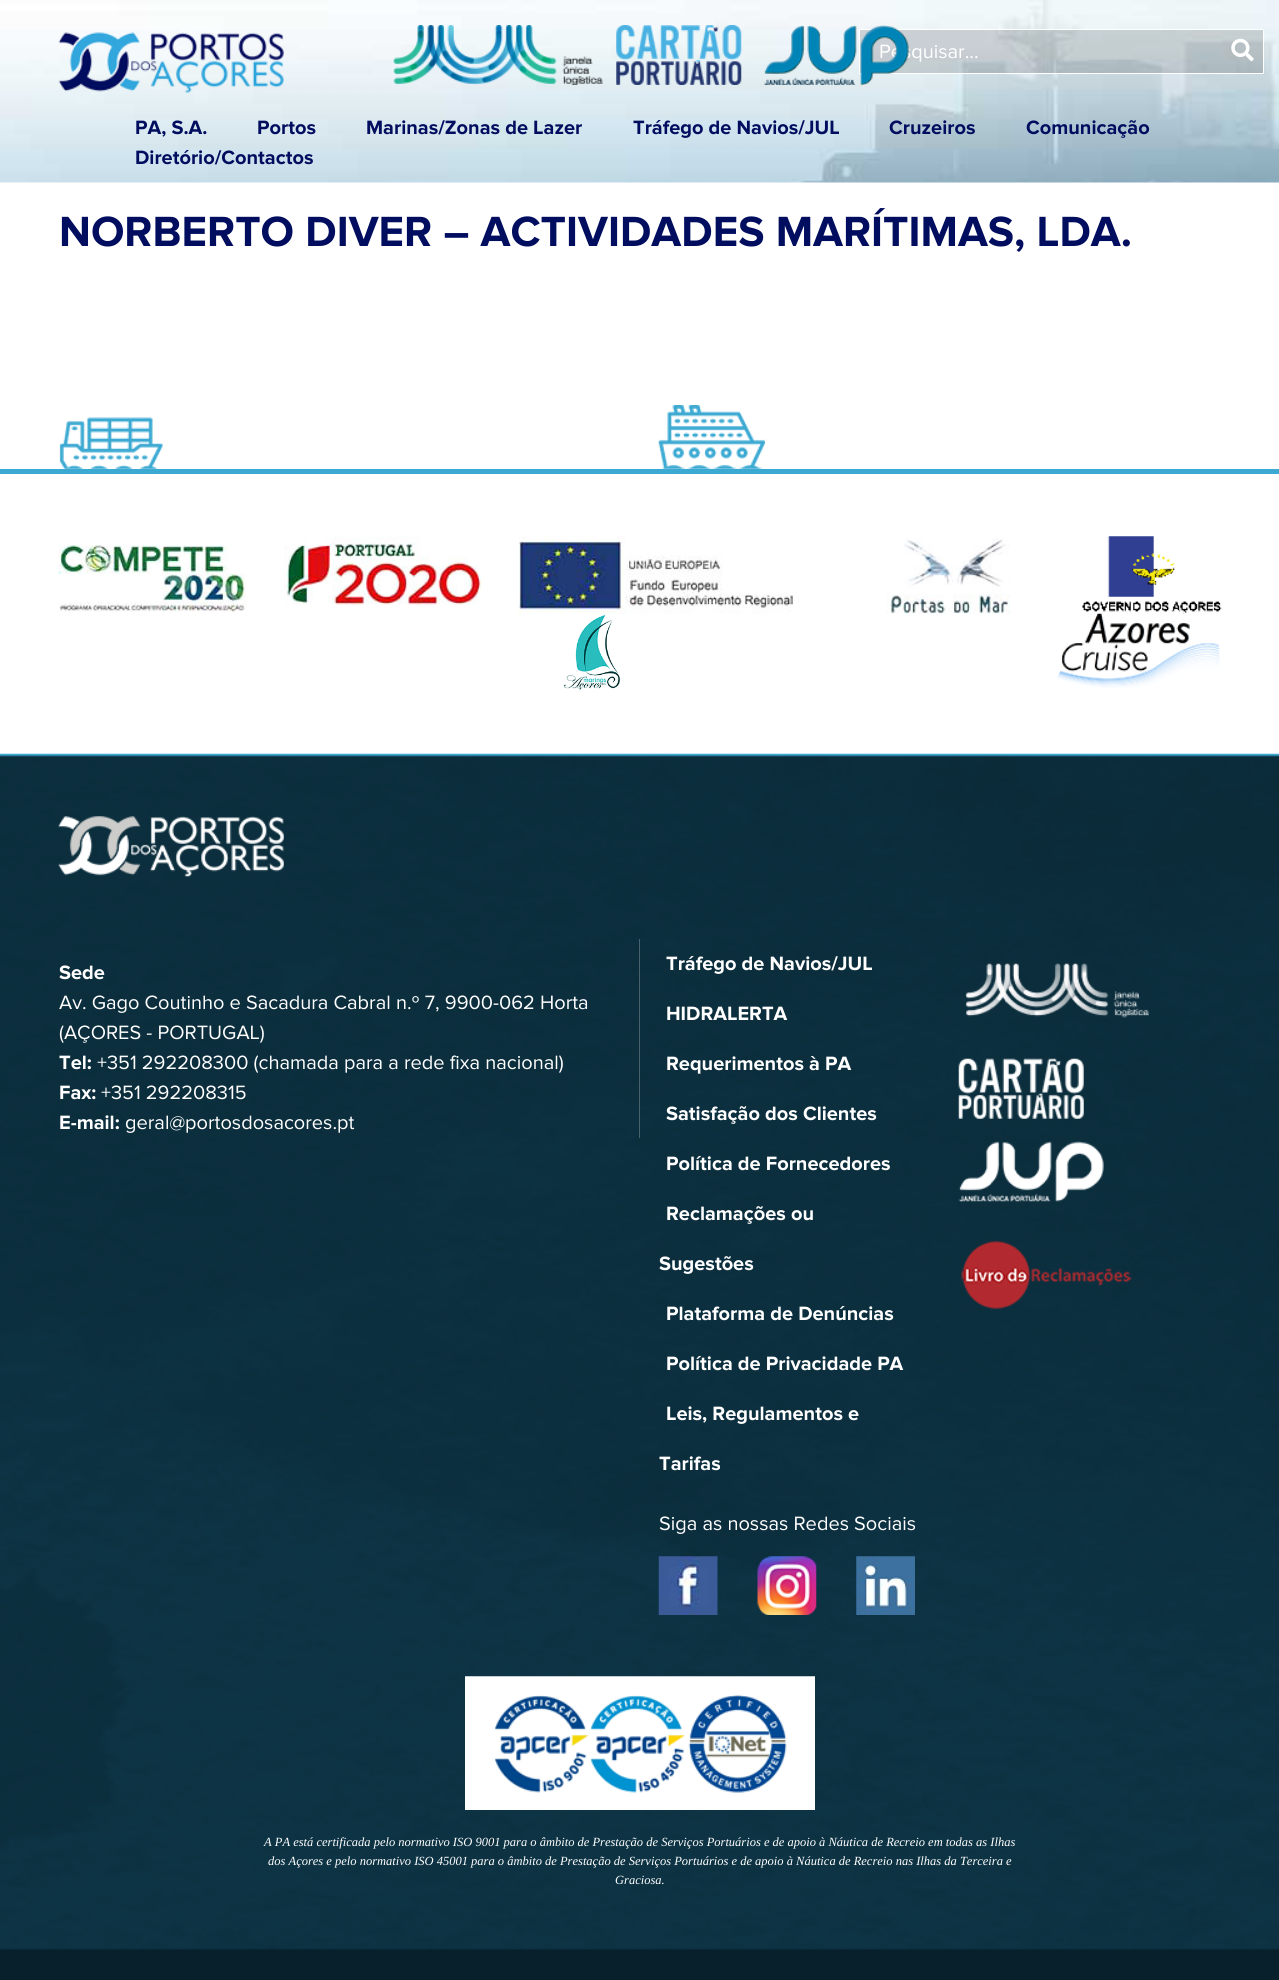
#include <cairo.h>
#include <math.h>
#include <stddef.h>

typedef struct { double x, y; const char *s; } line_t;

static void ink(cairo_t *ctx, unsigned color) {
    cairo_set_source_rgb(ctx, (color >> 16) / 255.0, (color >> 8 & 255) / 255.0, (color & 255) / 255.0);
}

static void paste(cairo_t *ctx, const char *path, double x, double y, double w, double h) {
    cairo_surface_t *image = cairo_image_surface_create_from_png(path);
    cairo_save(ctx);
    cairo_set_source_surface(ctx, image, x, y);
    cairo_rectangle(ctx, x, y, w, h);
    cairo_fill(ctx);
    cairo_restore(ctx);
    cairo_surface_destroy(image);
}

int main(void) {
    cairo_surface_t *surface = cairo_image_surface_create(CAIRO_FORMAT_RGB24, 1279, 1980);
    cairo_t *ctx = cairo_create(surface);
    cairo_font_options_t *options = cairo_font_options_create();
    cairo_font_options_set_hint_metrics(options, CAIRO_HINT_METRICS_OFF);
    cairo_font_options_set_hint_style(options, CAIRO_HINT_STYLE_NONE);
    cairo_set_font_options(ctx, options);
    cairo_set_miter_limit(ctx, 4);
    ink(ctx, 0xFFFFFF);
    cairo_paint(ctx);
    paste(ctx, "media/1.png", 0, 0, 1279, 183);
    paste(ctx, "media/2.png", 58, 32, 226, 61);
    cairo_set_source_rgba(ctx, 0, 0, 0, 0.15);
    cairo_rectangle(ctx, 859.5, 29.5, 404, 44);
    cairo_fill_preserve(ctx);
    ink(ctx, 0xFFFFFF);
    cairo_set_line_width(ctx, 1);
    cairo_stroke(ctx);
    cairo_select_font_face(ctx, "Proxima Nova", CAIRO_FONT_SLANT_NORMAL, CAIRO_FONT_WEIGHT_NORMAL);
    cairo_set_font_size(ctx, 20);
    cairo_move_to(ctx, 879, 58);
    cairo_show_text(ctx, "Pesquisar...");
    paste(ctx, "media/3.png", 1231, 38, 23, 24);
    paste(ctx, "media/4.png", 393, 25, 210, 60);
    paste(ctx, "media/5.png", 616, 25, 126, 60);
    paste(ctx, "media/6.png", 763, 25, 146, 60);
    cairo_select_font_face(ctx, "Proxima Nova", CAIRO_FONT_SLANT_NORMAL, CAIRO_FONT_WEIGHT_BOLD);
    ink(ctx, 0x010D5F);
    {
        static const line_t items[] = {
            {135, 134, "PA, S.A."},
            {257, 134, "Portos"},
            {366, 134, "Marinas/Zonas de Lazer"},
            {633, 134, "Tráfego de Navios/JUL"},
            {889, 134, "Cruzeiros"},
            {1026, 134, "Comunicação"},
            {135, 164, "Diretório/Contactos"},
        };
        for (size_t i = 0; i < sizeof items / sizeof *items; i++) {
            cairo_move_to(ctx, items[i].x, items[i].y);
            cairo_show_text(ctx, items[i].s);
        }
    }
    cairo_set_font_size(ctx, 43.75);
    cairo_move_to(ctx, 59, 246);
    cairo_show_text(ctx, "NORBERTO DIVER – ACTIVIDADES MARÍTIMAS, LDA.");
    paste(ctx, "media/7.png", 59, 417, 104, 52);
    paste(ctx, "media/8.png", 658, 405, 107, 64);
    ink(ctx, 0x3BA9D2);
    cairo_rectangle(ctx, 0, 469, 1279, 5);
    cairo_fill(ctx);
    paste(ctx, "media/9.png", 58, 545, 189, 67);
    paste(ctx, "media/10.png", 284, 536, 198, 69);
    paste(ctx, "media/11.png", 518, 536, 276, 78);
    paste(ctx, "media/12.png", 886, 538, 124, 76);
    paste(ctx, "media/13.png", 1082, 536, 140, 78);
    paste(ctx, "media/14.png", 563, 615, 57, 75);
    paste(ctx, "media/15.png", 1057, 613, 163, 75);
    paste(ctx, "media/16.png", 0, 753, 1279, 1198);
    paste(ctx, "media/17.png", 58, 816, 226, 61);
    ink(ctx, 0x48626D);
    cairo_rectangle(ctx, 639, 939, 1, 199);
    cairo_fill(ctx);
    cairo_set_font_size(ctx, 20);
    ink(ctx, 0xFFFFFF);
    cairo_move_to(ctx, 59, 979);
    cairo_show_text(ctx, "Sede");
    cairo_select_font_face(ctx, "Proxima Nova", CAIRO_FONT_SLANT_NORMAL, CAIRO_FONT_WEIGHT_NORMAL);
    cairo_move_to(ctx, 59, 1009);
    cairo_show_text(ctx, "Av. Gago Coutinho e Sacadura Cabral n.º 7, 9900-062 Horta");
    cairo_move_to(ctx, 59, 1039);
    cairo_show_text(ctx, "(AÇORES - PORTUGAL)");
    cairo_select_font_face(ctx, "Proxima Nova", CAIRO_FONT_SLANT_NORMAL, CAIRO_FONT_WEIGHT_BOLD);
    cairo_move_to(ctx, 59, 1069);
    cairo_show_text(ctx, "Tel:");
    cairo_select_font_face(ctx, "Proxima Nova", CAIRO_FONT_SLANT_NORMAL, CAIRO_FONT_WEIGHT_NORMAL);
    cairo_move_to(ctx, 97, 1069);
    cairo_show_text(ctx, "+351 292208300 (chamada para a rede fixa nacional)");
    cairo_select_font_face(ctx, "Proxima Nova", CAIRO_FONT_SLANT_NORMAL, CAIRO_FONT_WEIGHT_BOLD);
    cairo_move_to(ctx, 59, 1099);
    cairo_show_text(ctx, "Fax:");
    cairo_select_font_face(ctx, "Proxima Nova", CAIRO_FONT_SLANT_NORMAL, CAIRO_FONT_WEIGHT_NORMAL);
    cairo_move_to(ctx, 101, 1099);
    cairo_show_text(ctx, "+351 292208315");
    cairo_select_font_face(ctx, "Proxima Nova", CAIRO_FONT_SLANT_NORMAL, CAIRO_FONT_WEIGHT_BOLD);
    cairo_move_to(ctx, 59, 1129);
    cairo_show_text(ctx, "E-mail:");
    cairo_select_font_face(ctx, "Proxima Nova", CAIRO_FONT_SLANT_NORMAL, CAIRO_FONT_WEIGHT_NORMAL);
    cairo_move_to(ctx, 125, 1129);
    cairo_show_text(ctx, "geral@portosdosacores.pt");
    cairo_select_font_face(ctx, "Proxima Nova", CAIRO_FONT_SLANT_NORMAL, CAIRO_FONT_WEIGHT_BOLD);
    {
        static const line_t items[] = {
            {666, 970, "Tráfego de Navios/JUL"},
            {666, 1020, "HIDRALERTA"},
            {666, 1070, "Requerimentos à PA"},
            {666, 1120, "Satisfação dos Clientes"},
            {666, 1170, "Política de Fornecedores"},
            {666, 1220, "Reclamações ou"},
            {659, 1270, "Sugestões"},
            {666, 1320, "Plataforma de Denúncias"},
            {666, 1370, "Política de Privacidade PA"},
            {666, 1420, "Leis, Regulamentos e"},
            {659, 1470, "Tarifas"},
        };
        for (size_t i = 0; i < sizeof items / sizeof *items; i++) {
            cairo_move_to(ctx, items[i].x, items[i].y);
            cairo_show_text(ctx, items[i].s);
        }
    }
    paste(ctx, "media/18.png", 965, 963, 184, 55);
    paste(ctx, "media/19.png", 958, 1058, 126, 61);
    paste(ctx, "media/20.png", 958, 1141, 146, 61);
    paste(ctx, "media/21.png", 961, 1241, 171, 68);
    cairo_select_font_face(ctx, "Proxima Nova", CAIRO_FONT_SLANT_NORMAL, CAIRO_FONT_WEIGHT_NORMAL);
    cairo_move_to(ctx, 659, 1530);
    cairo_show_text(ctx, "Siga as nossas Redes Sociais");
    paste(ctx, "media/22.png", 658, 1556, 60, 59);
    paste(ctx, "media/23.png", 757, 1556, 60, 59);
    paste(ctx, "media/24.png", 856, 1556, 59, 59);
    paste(ctx, "media/25.png", 465, 1676, 350, 134);
    cairo_select_font_face(ctx, "Liberation Serif", CAIRO_FONT_SLANT_ITALIC, CAIRO_FONT_WEIGHT_NORMAL);
    cairo_set_font_size(ctx, 12.5);
    {
        static const line_t items[] = {
            {264, 1846, "A PA está certificada pelo normativo ISO 9001 para o âmbito de Prestação de Serviços Portuários e de apoio à Náutica de Recreio em todas as Ilhas"},
            {268, 1865, "dos Açores e pelo normativo ISO 45001 para o âmbito de Prestação de Serviços Portuários e de apoio à Náutica de Recreio nas Ilhas da Terceira e"},
            {615, 1884, "Graciosa."},
        };
        for (size_t i = 0; i < sizeof items / sizeof *items; i++) {
            cairo_move_to(ctx, items[i].x, items[i].y);
            cairo_show_text(ctx, items[i].s);
        }
    }
    ink(ctx, 0x08202B);
    cairo_rectangle(ctx, 0, 1951, 1279, 29);
    cairo_fill(ctx);
    cairo_surface_write_to_png(surface, "image.png");
    cairo_font_options_destroy(options);
    cairo_destroy(ctx);
    cairo_surface_destroy(surface);
    return 0;
}
